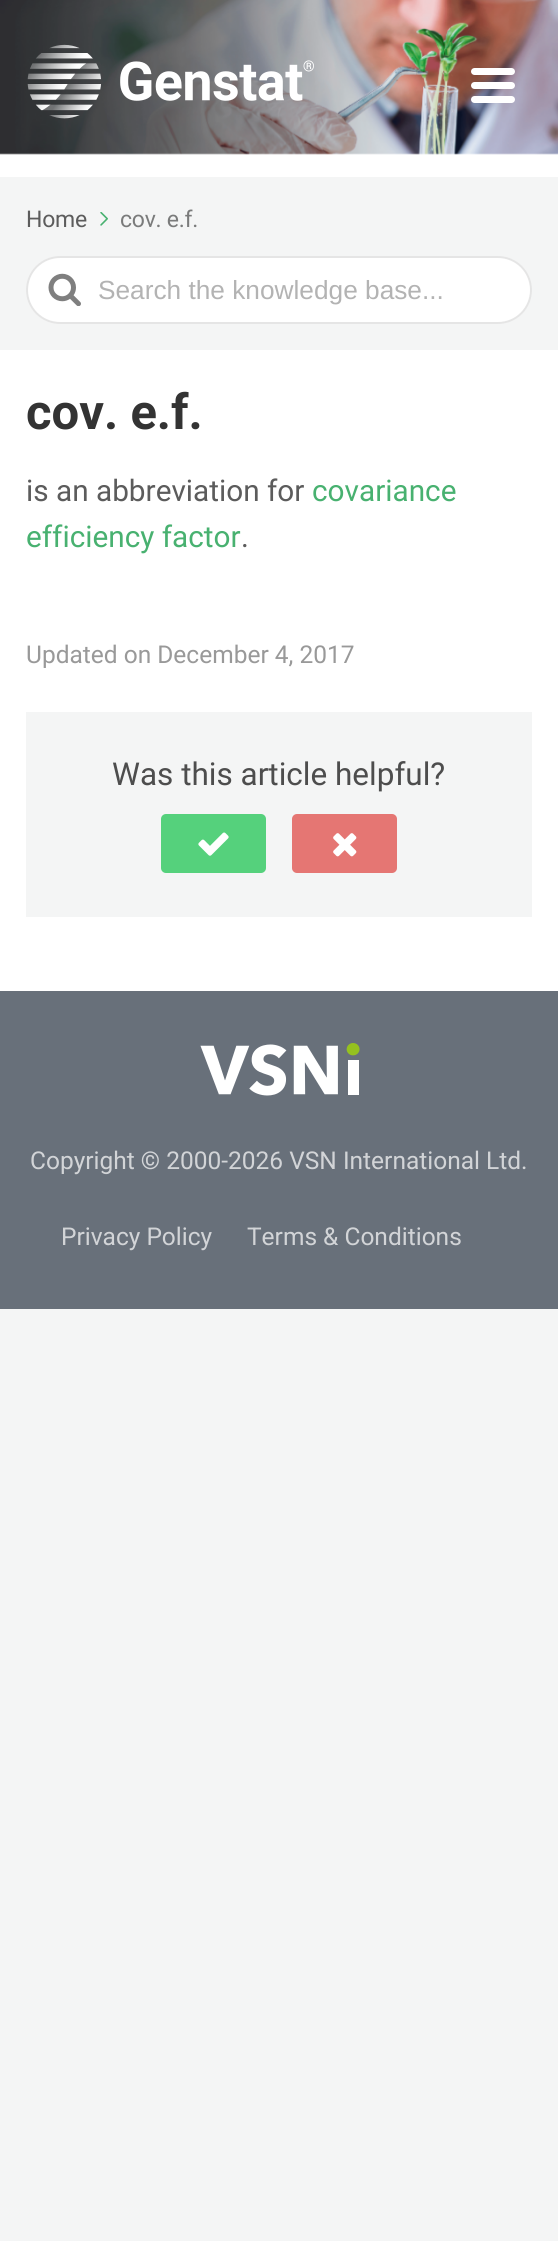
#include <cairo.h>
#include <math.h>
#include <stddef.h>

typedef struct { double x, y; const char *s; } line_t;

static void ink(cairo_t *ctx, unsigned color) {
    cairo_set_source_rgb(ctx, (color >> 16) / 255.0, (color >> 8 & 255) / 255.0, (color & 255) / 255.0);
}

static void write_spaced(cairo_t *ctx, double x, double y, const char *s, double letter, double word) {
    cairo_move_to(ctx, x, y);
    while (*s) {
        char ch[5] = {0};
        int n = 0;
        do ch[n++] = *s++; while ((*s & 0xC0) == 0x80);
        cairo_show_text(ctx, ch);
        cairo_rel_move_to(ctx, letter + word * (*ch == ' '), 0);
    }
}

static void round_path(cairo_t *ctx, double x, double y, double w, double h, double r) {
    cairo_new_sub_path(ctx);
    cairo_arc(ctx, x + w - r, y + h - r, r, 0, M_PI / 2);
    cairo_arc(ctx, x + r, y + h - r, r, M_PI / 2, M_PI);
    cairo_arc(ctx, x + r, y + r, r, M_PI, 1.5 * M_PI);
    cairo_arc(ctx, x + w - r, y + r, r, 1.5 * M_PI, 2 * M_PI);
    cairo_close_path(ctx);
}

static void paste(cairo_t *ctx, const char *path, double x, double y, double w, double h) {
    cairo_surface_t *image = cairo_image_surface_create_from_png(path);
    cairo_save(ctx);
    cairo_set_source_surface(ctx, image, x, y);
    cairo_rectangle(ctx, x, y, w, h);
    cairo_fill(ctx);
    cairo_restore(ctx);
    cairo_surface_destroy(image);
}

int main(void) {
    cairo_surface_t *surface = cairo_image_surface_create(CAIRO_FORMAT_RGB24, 558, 2241);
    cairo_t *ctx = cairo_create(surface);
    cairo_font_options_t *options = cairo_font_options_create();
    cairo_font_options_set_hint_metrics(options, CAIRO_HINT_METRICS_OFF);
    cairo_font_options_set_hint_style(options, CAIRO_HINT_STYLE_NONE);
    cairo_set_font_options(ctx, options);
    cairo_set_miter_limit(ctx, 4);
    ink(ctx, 0xF4F5F5);
    cairo_paint(ctx);
    ink(ctx, 0xFFFFFF);
    cairo_rectangle(ctx, 0, 153, 558, 838);
    cairo_fill(ctx);
    paste(ctx, "media/1.png", 0, 0, 558, 155);
    paste(ctx, "media/2.png", 27, 44, 287, 75);
    round_path(ctx, 471, 82, 44, 7, 3.5);
    cairo_fill(ctx);
    round_path(ctx, 471, 68, 44, 7, 3.5);
    cairo_fill(ctx);
    round_path(ctx, 471, 96, 44, 7, 3.5);
    cairo_fill(ctx);
    ink(ctx, 0xF4F5F5);
    cairo_rectangle(ctx, 0, 177, 558, 173);
    cairo_fill(ctx);
    cairo_select_font_face(ctx, "Roboto", CAIRO_FONT_SLANT_NORMAL, CAIRO_FONT_WEIGHT_NORMAL);
    cairo_set_font_size(ctx, 23);
    ink(ctx, 0x5C5C5C);
    write_spaced(ctx, 26, 227, "Home", -0.25, 0);
    paste(ctx, "media/3.png", 100, 212, 8, 14);
    ink(ctx, 0x7A7B7B);
    write_spaced(ctx, 120, 227, "cov. e.f.", -0.25, 0);
    ink(ctx, 0xFFFFFF);
    round_path(ctx, 26, 256, 506, 68, 34);
    cairo_fill(ctx);
    round_path(ctx, 27, 257, 504, 66, 33);
    cairo_set_source_rgba(ctx, 0.8, 0.8, 0.8, 0.5);
    cairo_stroke(ctx);
    paste(ctx, "media/4.png", 48, 273, 33, 33);
    cairo_select_font_face(ctx, "Liberation Sans", CAIRO_FONT_SLANT_NORMAL, CAIRO_FONT_WEIGHT_NORMAL);
    cairo_set_font_size(ctx, 26.25);
    ink(ctx, 0xB3B3B3);
    cairo_move_to(ctx, 98, 299);
    cairo_show_text(ctx, "Search the knowledge base...");
    cairo_select_font_face(ctx, "Roboto", CAIRO_FONT_SLANT_NORMAL, CAIRO_FONT_WEIGHT_BOLD);
    cairo_set_font_size(ctx, 49);
    ink(ctx, 0x333333);
    cairo_move_to(ctx, 26, 429);
    cairo_show_text(ctx, "cov. e.f.");
    cairo_select_font_face(ctx, "Roboto", CAIRO_FONT_SLANT_NORMAL, CAIRO_FONT_WEIGHT_NORMAL);
    cairo_set_font_size(ctx, 29.75);
    ink(ctx, 0x5C5C5C);
    cairo_move_to(ctx, 26, 501);
    cairo_show_text(ctx, "is an abbreviation for");
    ink(ctx, 0x48B170);
    cairo_move_to(ctx, 312, 501);
    cairo_show_text(ctx, "covariance");
    cairo_move_to(ctx, 26, 547);
    cairo_show_text(ctx, "efficiency factor");
    ink(ctx, 0x5C5C5C);
    cairo_move_to(ctx, 241, 547);
    cairo_show_text(ctx, ".");
    cairo_set_font_size(ctx, 24.5);
    ink(ctx, 0x999999);
    cairo_move_to(ctx, 26, 663);
    cairo_show_text(ctx, "Updated on December 4, 2017");
    ink(ctx, 0xF4F5F5);
    cairo_rectangle(ctx, 26, 712, 506, 205);
    cairo_fill(ctx);
    cairo_set_font_size(ctx, 31.5);
    ink(ctx, 0x4D4D4D);
    cairo_move_to(ctx, 112, 785);
    cairo_show_text(ctx, "Was this article helpful?");
    ink(ctx, 0x55D17C);
    round_path(ctx, 161, 814, 105, 59, 5);
    cairo_fill(ctx);
    paste(ctx, "media/5.png", 198, 832, 31, 24);
    ink(ctx, 0xE57673);
    round_path(ctx, 292, 814, 105, 59, 5);
    cairo_fill(ctx);
    paste(ctx, "media/6.png", 333, 833, 24, 24);
    ink(ctx, 0x68707A);
    cairo_rectangle(ctx, 0, 991, 558, 318);
    cairo_fill(ctx);
    paste(ctx, "media/7.png", 200, 1043, 160, 53);
    cairo_set_font_size(ctx, 24.5);
    ink(ctx, 0xD2D4D7);
    {
        static const line_t items[] = {
            {30, 1169, "Copyright © 2000-2026 VSN International Ltd."},
            {61, 1245, "Privacy Policy"},
            {247, 1245, "Terms & Conditions"},
        };
        for (size_t i = 0; i < sizeof items / sizeof *items; i++) {
            cairo_move_to(ctx, items[i].x, items[i].y);
            cairo_show_text(ctx, items[i].s);
        }
    }
    cairo_surface_write_to_png(surface, "image.png");
    cairo_font_options_destroy(options);
    cairo_destroy(ctx);
    cairo_surface_destroy(surface);
    return 0;
}
